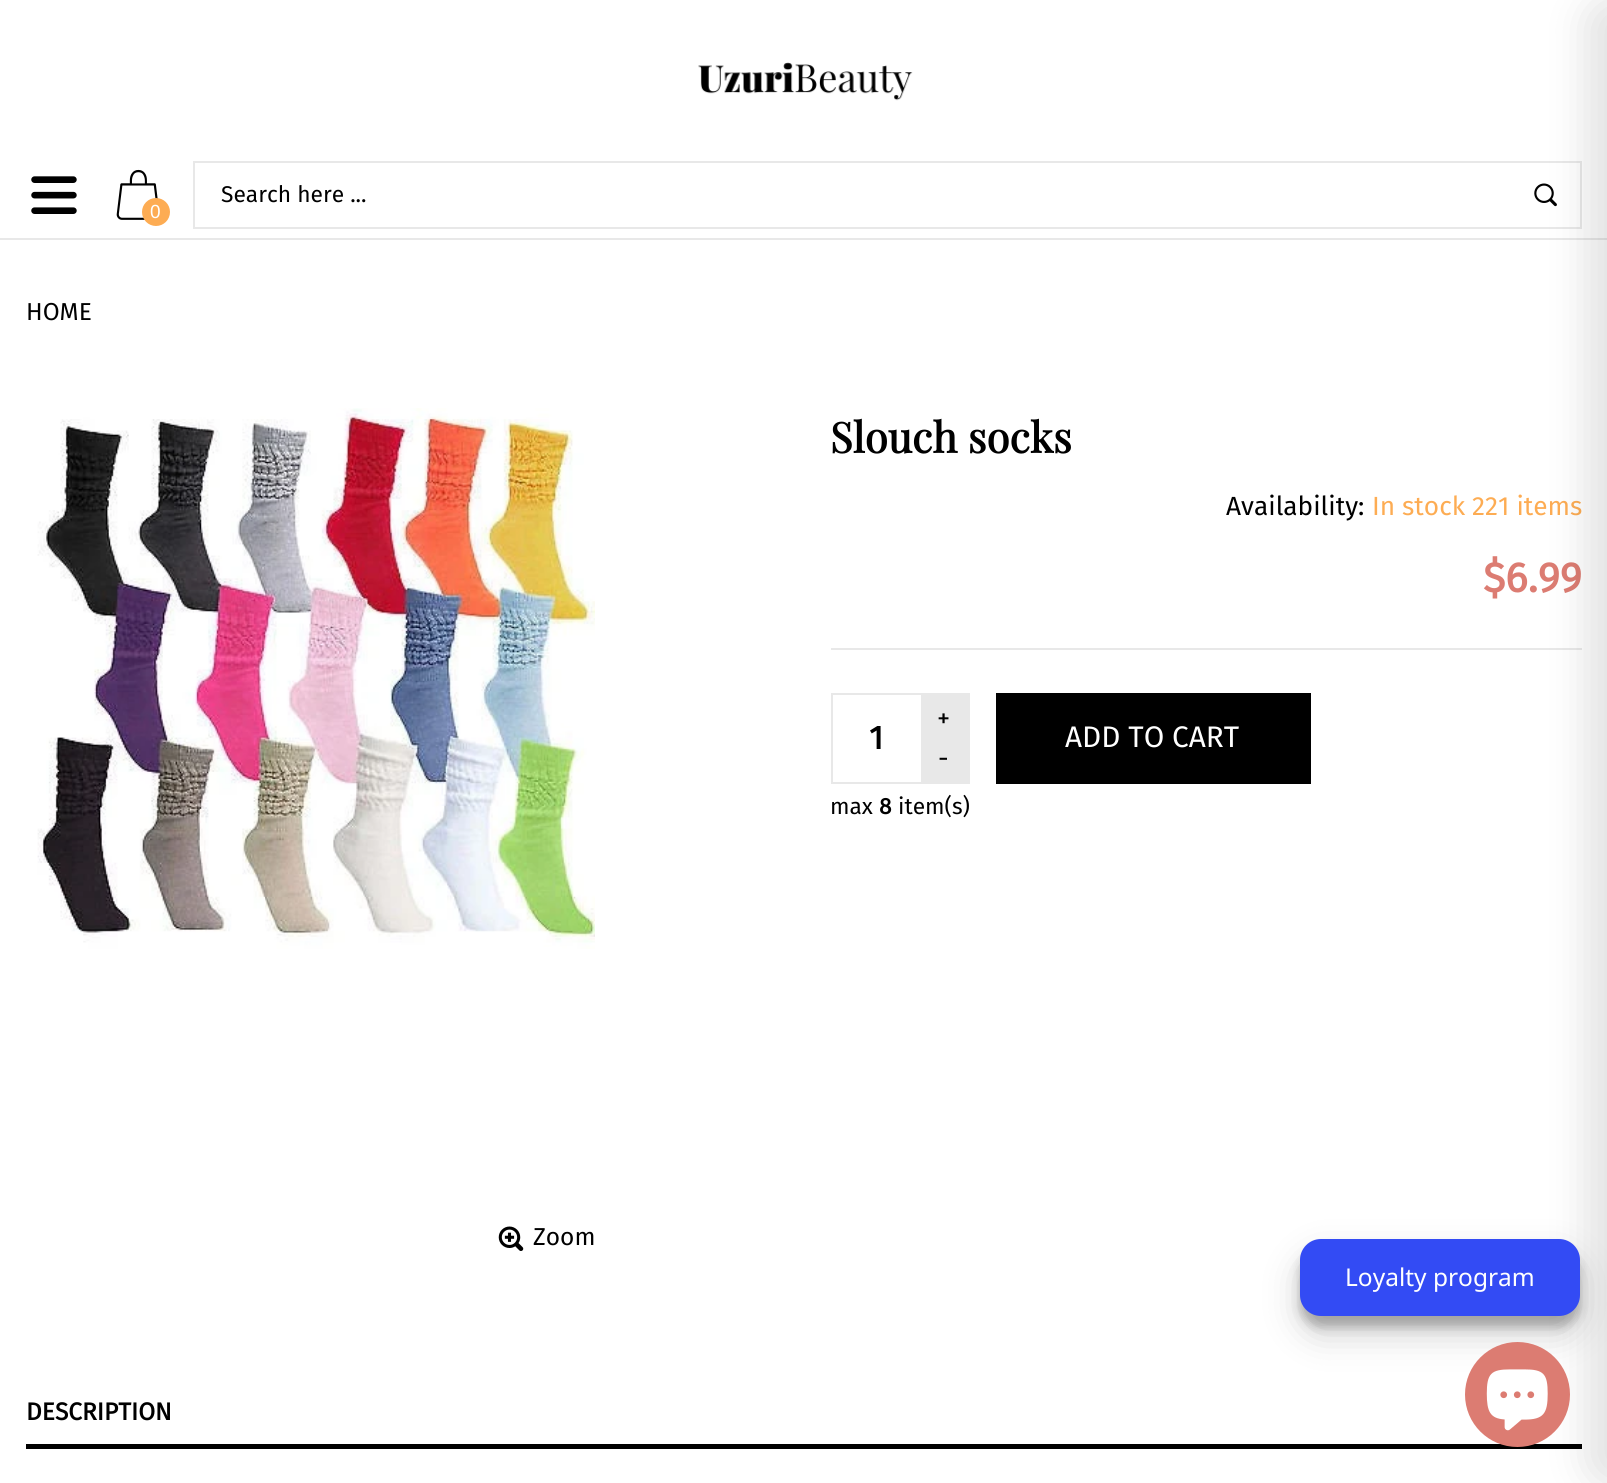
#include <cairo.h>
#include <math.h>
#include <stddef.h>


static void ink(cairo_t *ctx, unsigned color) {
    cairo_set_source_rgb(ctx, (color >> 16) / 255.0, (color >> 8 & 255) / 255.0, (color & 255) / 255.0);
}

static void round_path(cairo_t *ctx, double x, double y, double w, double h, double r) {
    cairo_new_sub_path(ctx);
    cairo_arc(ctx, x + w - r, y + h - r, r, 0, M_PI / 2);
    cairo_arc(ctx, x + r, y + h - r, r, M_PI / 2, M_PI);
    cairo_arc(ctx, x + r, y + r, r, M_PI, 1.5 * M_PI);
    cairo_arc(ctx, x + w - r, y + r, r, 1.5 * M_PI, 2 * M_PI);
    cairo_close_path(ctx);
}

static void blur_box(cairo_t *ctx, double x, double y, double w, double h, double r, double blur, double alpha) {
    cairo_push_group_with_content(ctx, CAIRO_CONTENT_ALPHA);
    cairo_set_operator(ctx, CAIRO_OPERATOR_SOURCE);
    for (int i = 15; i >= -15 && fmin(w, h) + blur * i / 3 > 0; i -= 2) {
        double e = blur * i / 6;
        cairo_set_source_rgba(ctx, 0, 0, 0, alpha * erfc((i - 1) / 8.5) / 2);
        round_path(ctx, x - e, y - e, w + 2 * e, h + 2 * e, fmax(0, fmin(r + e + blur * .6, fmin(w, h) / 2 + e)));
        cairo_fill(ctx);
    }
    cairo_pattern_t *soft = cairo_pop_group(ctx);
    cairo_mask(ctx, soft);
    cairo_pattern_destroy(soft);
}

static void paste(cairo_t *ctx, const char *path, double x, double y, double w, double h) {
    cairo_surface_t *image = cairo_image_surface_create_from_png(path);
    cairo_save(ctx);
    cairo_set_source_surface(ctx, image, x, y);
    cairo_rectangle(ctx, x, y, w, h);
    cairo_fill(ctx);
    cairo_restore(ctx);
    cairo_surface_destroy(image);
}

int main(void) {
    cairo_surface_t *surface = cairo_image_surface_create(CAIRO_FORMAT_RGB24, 1607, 1483);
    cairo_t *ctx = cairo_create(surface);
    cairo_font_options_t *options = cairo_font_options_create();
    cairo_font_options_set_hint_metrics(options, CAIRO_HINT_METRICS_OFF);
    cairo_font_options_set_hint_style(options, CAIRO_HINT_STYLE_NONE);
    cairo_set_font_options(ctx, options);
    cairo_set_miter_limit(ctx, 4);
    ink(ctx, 0xFFFFFF);
    cairo_paint(ctx);
    paste(ctx, "media/1.png", 31, 176, 46, 38);
    paste(ctx, "media/2.png", 698, 62, 215, 39);
    cairo_rectangle(ctx, 194, 162, 1387, 66);
    ink(ctx, 0xE8E8E8);
    cairo_stroke(ctx);
    cairo_select_font_face(ctx, "Fira Sans", CAIRO_FONT_SLANT_NORMAL, CAIRO_FONT_WEIGHT_NORMAL);
    cairo_set_font_size(ctx, 22.75);
    ink(ctx, 0x000000);
    cairo_move_to(ctx, 221, 202);
    cairo_show_text(ctx, "Search here ...");
    paste(ctx, "media/3.png", 1534, 183, 23, 24);
    paste(ctx, "media/4.png", 116, 169, 42, 51);
    ink(ctx, 0xFDAC53);
    cairo_arc(ctx, 156, 212, 14, 0, 2 * M_PI);
    cairo_fill(ctx);
    cairo_select_font_face(ctx, "Liberation Sans", CAIRO_FONT_SLANT_NORMAL, CAIRO_FONT_WEIGHT_NORMAL);
    cairo_set_font_size(ctx, 19);
    ink(ctx, 0xFFFFFF);
    cairo_move_to(ctx, 150, 218);
    cairo_show_text(ctx, "0");
    ink(ctx, 0xE8E8E8);
    cairo_rectangle(ctx, 0, 238, 1607, 2);
    cairo_fill(ctx);
    cairo_select_font_face(ctx, "Fira Sans", CAIRO_FONT_SLANT_NORMAL, CAIRO_FONT_WEIGHT_NORMAL);
    cairo_set_font_size(ctx, 24.5);
    ink(ctx, 0x000000);
    cairo_move_to(ctx, 26, 320);
    cairo_show_text(ctx, "HOME");
    cairo_select_font_face(ctx, "Playfair Display", CAIRO_FONT_SLANT_NORMAL, CAIRO_FONT_WEIGHT_BOLD);
    cairo_set_font_size(ctx, 42);
    cairo_move_to(ctx, 830, 453);
    cairo_show_text(ctx, "Slouch socks");
    cairo_select_font_face(ctx, "Fira Sans", CAIRO_FONT_SLANT_NORMAL, CAIRO_FONT_WEIGHT_NORMAL);
    cairo_set_font_size(ctx, 26.25);
    cairo_move_to(ctx, 1226, 515);
    cairo_show_text(ctx, "Availability:");
    ink(ctx, 0xFDAC53);
    cairo_move_to(ctx, 1372, 515);
    cairo_show_text(ctx, "In stock 221 items");
    cairo_select_font_face(ctx, "Fira Sans", CAIRO_FONT_SLANT_NORMAL, CAIRO_FONT_WEIGHT_BOLD);
    cairo_set_font_size(ctx, 42);
    ink(ctx, 0xDC7C72);
    cairo_move_to(ctx, 1483, 592);
    cairo_show_text(ctx, "$6.99");
    ink(ctx, 0xE8E8E8);
    cairo_rectangle(ctx, 831, 648, 751, 2);
    cairo_fill(ctx);
    cairo_rectangle(ctx, 832, 694, 137, 89);
    cairo_stroke(ctx);
    cairo_rectangle(ctx, 921, 695, 47, 87);
    cairo_fill(ctx);
    cairo_select_font_face(ctx, "Fira Sans", CAIRO_FONT_SLANT_NORMAL, CAIRO_FONT_WEIGHT_NORMAL);
    cairo_set_font_size(ctx, 26.25);
    ink(ctx, 0x000000);
    cairo_move_to(ctx, 937, 727);
    cairo_show_text(ctx, "+");
    cairo_select_font_face(ctx, "Fira Sans", CAIRO_FONT_SLANT_NORMAL, CAIRO_FONT_WEIGHT_BOLD);
    cairo_set_font_size(ctx, 33);
    cairo_move_to(ctx, 869, 749);
    cairo_show_text(ctx, "1");
    cairo_select_font_face(ctx, "Fira Sans", CAIRO_FONT_SLANT_NORMAL, CAIRO_FONT_WEIGHT_NORMAL);
    cairo_set_font_size(ctx, 26.25);
    cairo_move_to(ctx, 938, 767);
    cairo_show_text(ctx, "-");
    cairo_set_font_size(ctx, 22.75);
    cairo_move_to(ctx, 830, 814);
    cairo_show_text(ctx, "max");
    cairo_select_font_face(ctx, "Fira Sans", CAIRO_FONT_SLANT_NORMAL, CAIRO_FONT_WEIGHT_BOLD);
    cairo_move_to(ctx, 879, 814);
    cairo_show_text(ctx, "8");
    cairo_select_font_face(ctx, "Fira Sans", CAIRO_FONT_SLANT_NORMAL, CAIRO_FONT_WEIGHT_NORMAL);
    cairo_move_to(ctx, 898, 814);
    cairo_show_text(ctx, "item(s)");
    cairo_rectangle(ctx, 996, 693, 315, 91);
    cairo_fill(ctx);
    cairo_set_font_size(ctx, 29.75);
    ink(ctx, 0xFFFFFF);
    cairo_move_to(ctx, 1065, 747);
    cairo_show_text(ctx, "ADD TO CART");
    paste(ctx, "media/5.png", 37, 408, 558, 541);
    paste(ctx, "media/6.png", 498, 1226, 26, 25);
    cairo_set_font_size(ctx, 24.5);
    ink(ctx, 0x000000);
    cairo_move_to(ctx, 533, 1245);
    cairo_show_text(ctx, "Zoom");
    cairo_select_font_face(ctx, "Fira Sans", CAIRO_FONT_SLANT_NORMAL, CAIRO_FONT_WEIGHT_BOLD);
    cairo_move_to(ctx, 26, 1420);
    cairo_show_text(ctx, "DESCRIPTION");
    cairo_rectangle(ctx, 26, 1444, 1556, 5);
    cairo_fill(ctx);
    ink(ctx, 0x000000);
    blur_box(ctx, 1300, 1250, 280, 77, 21, 5, 0.23);
    blur_box(ctx, 1300, 1257, 280, 77, 21, 17.5, 0.19);
    blur_box(ctx, 1587, 0, 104, 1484, 21, 21, 0.12);
    ink(ctx, 0x334BF4);
    round_path(ctx, 1300, 1239, 280, 77, 21);
    cairo_fill(ctx);
    cairo_select_font_face(ctx, "Noto Sans", CAIRO_FONT_SLANT_NORMAL, CAIRO_FONT_WEIGHT_NORMAL);
    ink(ctx, 0xFFFFFF);
    cairo_move_to(ctx, 1345, 1286);
    cairo_show_text(ctx, "Loyalty program");
    ink(ctx, 0xDC7C72);
    cairo_new_path(ctx);
    cairo_arc(ctx, 1517.5, 1394.5, 52.5, 0, 2 * M_PI);
    cairo_fill(ctx);
    paste(ctx, "media/7.png", 1486, 1369, 62, 62);
    cairo_surface_write_to_png(surface, "image.png");
    cairo_font_options_destroy(options);
    cairo_destroy(ctx);
    cairo_surface_destroy(surface);
    return 0;
}
